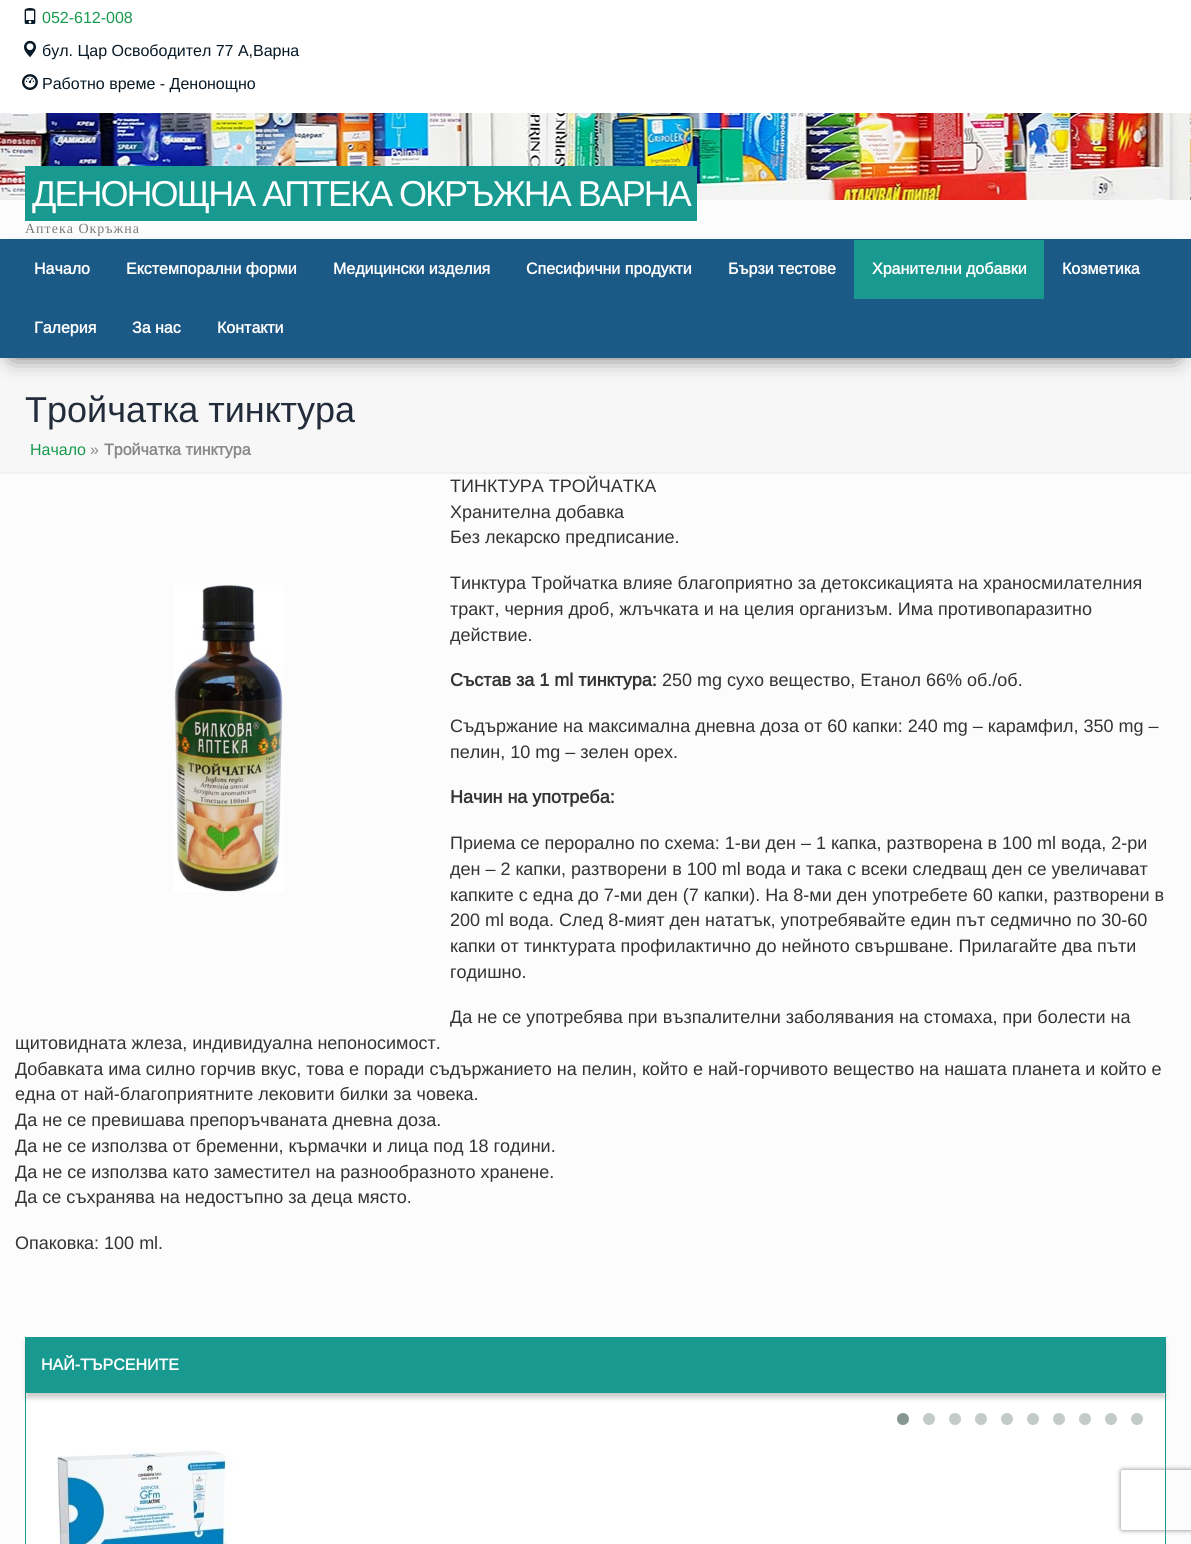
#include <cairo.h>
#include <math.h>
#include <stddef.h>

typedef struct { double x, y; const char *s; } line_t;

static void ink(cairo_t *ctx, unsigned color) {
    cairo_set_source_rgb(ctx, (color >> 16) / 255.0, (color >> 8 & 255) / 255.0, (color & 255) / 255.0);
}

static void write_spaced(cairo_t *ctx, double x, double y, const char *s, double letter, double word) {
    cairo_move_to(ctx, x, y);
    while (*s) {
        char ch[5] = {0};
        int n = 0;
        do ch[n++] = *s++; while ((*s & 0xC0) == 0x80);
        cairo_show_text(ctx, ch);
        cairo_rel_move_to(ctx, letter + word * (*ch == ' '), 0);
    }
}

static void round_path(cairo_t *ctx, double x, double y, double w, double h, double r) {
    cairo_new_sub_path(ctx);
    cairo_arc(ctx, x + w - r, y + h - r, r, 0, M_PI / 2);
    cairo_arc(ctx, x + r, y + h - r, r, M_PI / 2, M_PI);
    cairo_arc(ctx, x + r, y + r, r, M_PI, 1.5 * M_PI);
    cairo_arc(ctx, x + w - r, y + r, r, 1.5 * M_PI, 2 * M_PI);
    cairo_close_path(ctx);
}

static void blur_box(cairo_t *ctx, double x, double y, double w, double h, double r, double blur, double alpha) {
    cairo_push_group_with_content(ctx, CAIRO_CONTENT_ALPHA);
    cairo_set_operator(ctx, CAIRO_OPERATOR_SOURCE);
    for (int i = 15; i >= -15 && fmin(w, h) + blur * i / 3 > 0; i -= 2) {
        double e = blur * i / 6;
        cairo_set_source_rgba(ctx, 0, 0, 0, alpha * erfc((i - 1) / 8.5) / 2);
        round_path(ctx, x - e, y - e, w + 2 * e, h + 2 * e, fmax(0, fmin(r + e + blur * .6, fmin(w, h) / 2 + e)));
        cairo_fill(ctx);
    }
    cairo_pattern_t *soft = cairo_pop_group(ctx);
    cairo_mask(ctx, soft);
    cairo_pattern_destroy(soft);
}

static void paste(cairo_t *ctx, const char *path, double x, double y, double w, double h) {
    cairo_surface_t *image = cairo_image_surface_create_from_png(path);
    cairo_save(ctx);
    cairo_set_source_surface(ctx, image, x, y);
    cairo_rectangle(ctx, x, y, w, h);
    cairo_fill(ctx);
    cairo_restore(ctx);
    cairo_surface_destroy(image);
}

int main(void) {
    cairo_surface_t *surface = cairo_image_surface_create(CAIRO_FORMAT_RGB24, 1191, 1544);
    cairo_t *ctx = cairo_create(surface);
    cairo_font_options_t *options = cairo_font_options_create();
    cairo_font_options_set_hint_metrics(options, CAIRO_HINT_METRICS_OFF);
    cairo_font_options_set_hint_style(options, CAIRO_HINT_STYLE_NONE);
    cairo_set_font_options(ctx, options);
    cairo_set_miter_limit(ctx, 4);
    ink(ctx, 0xFCFCFC);
    cairo_paint(ctx);
    paste(ctx, "media/1.png", 0, 113, 1191, 87);
    ink(ctx, 0xFFFFFF);
    cairo_rectangle(ctx, 0, 0, 1191, 113);
    cairo_fill(ctx);
    paste(ctx, "media/2.png", 24, 8, 12, 16);
    cairo_select_font_face(ctx, "Arimo", CAIRO_FONT_SLANT_NORMAL, CAIRO_FONT_WEIGHT_NORMAL);
    cairo_set_font_size(ctx, 16);
    ink(ctx, 0x189A4E);
    cairo_move_to(ctx, 42, 23);
    cairo_show_text(ctx, "052-612-008");
    paste(ctx, "media/3.png", 24, 40, 12, 18);
    ink(ctx, 0x071926);
    cairo_move_to(ctx, 42, 56);
    cairo_show_text(ctx, "бул. Цар Освободител 77 А,Варна");
    paste(ctx, "media/4.png", 22, 74, 16, 16);
    cairo_move_to(ctx, 42, 89);
    cairo_show_text(ctx, "Работно време - Денонощно");
    ink(ctx, 0x189A90);
    cairo_rectangle(ctx, 25, 166, 672, 55);
    cairo_fill(ctx);
    cairo_set_font_size(ctx, 36);
    ink(ctx, 0xFFFFFF);
    write_spaced(ctx, 32, 206, "ДЕНОНОЩНА АПТЕКА ОКРЪЖНА ВАРНА", -2, 0);
    cairo_select_font_face(ctx, "Liberation Serif", CAIRO_FONT_SLANT_NORMAL, CAIRO_FONT_WEIGHT_NORMAL);
    cairo_set_font_size(ctx, 14);
    ink(ctx, 0x7B7A7A);
    write_spaced(ctx, 25, 233, "Аптека Окръжна", 1, 0);
    ink(ctx, 0xF7F7F7);
    cairo_rectangle(ctx, 0, 358, 1191, 114);
    cairo_fill(ctx);
    ink(ctx, 0x000000);
    blur_box(ctx, 13, 263, 1163, 91, 0, 12, 0.75);
    ink(ctx, 0x1B5987);
    cairo_rectangle(ctx, 0, 239, 1191, 119);
    cairo_fill(ctx);
    cairo_select_font_face(ctx, "Arimo", CAIRO_FONT_SLANT_NORMAL, CAIRO_FONT_WEIGHT_BOLD);
    cairo_set_font_size(ctx, 16);
    ink(ctx, 0xFFFFFF);
    {
        static const line_t items[] = {
            {34, 274, "Начало"},
            {126, 274, "Екстемпорални форми"},
            {333, 274, "Медицински изделия"},
            {526, 274, "Спесифични продукти"},
            {728, 274, "Бързи тестове"},
        };
        for (size_t i = 0; i < sizeof items / sizeof *items; i++) {
            cairo_move_to(ctx, items[i].x, items[i].y);
            cairo_show_text(ctx, items[i].s);
        }
    }
    ink(ctx, 0x189A90);
    cairo_rectangle(ctx, 854, 240, 190, 59);
    cairo_fill(ctx);
    ink(ctx, 0xFFFFFF);
    {
        static const line_t items[] = {
            {872, 274, "Хранителни добавки"},
            {1062, 274, "Козметика"},
            {34, 333, "Галерия"},
            {132, 333, "За нас"},
            {217, 333, "Контакти"},
        };
        for (size_t i = 0; i < sizeof items / sizeof *items; i++) {
            cairo_move_to(ctx, items[i].x, items[i].y);
            cairo_show_text(ctx, items[i].s);
        }
    }
    ink(ctx, 0xF1F1F1);
    cairo_rectangle(ctx, 0, 472, 1191, 2);
    cairo_fill(ctx);
    cairo_select_font_face(ctx, "Liberation Sans", CAIRO_FONT_SLANT_NORMAL, CAIRO_FONT_WEIGHT_NORMAL);
    cairo_set_font_size(ctx, 36);
    ink(ctx, 0x232C3A);
    cairo_move_to(ctx, 25, 422);
    cairo_show_text(ctx, "Тройчатка тинктура");
    cairo_select_font_face(ctx, "Arimo", CAIRO_FONT_SLANT_NORMAL, CAIRO_FONT_WEIGHT_NORMAL);
    cairo_set_font_size(ctx, 16);
    ink(ctx, 0x189A4E);
    cairo_move_to(ctx, 30, 455);
    cairo_show_text(ctx, "Начало");
    ink(ctx, 0x888888);
    cairo_move_to(ctx, 90, 455);
    cairo_show_text(ctx, "»");
    cairo_select_font_face(ctx, "Arimo", CAIRO_FONT_SLANT_NORMAL, CAIRO_FONT_WEIGHT_BOLD);
    cairo_move_to(ctx, 104, 455);
    cairo_show_text(ctx, "Тройчатка тинктура");
    cairo_select_font_face(ctx, "Arimo", CAIRO_FONT_SLANT_NORMAL, CAIRO_FONT_WEIGHT_NORMAL);
    cairo_set_font_size(ctx, 18);
    ink(ctx, 0x333333);
    {
        static const line_t items[] = {
            {450, 492, "ТИНКТУРА ТРОЙЧАТКА"},
            {450, 518, "Хранителна добавка"},
            {450, 543, "Без лекарско предписание."},
        };
        for (size_t i = 0; i < sizeof items / sizeof *items; i++) {
            cairo_move_to(ctx, items[i].x, items[i].y);
            cairo_show_text(ctx, items[i].s);
        }
    }
    paste(ctx, "media/5.png", 173, 585, 111, 307);
    {
        static const line_t items[] = {
            {450, 589, "Тинктура Тройчатка влияе благоприятно за детоксикацията на храносмилателния"},
            {450, 615, "тракт, черния дроб, жлъчката и на целия организъм. Има противопаразитно"},
            {450, 641, "действие."},
        };
        for (size_t i = 0; i < sizeof items / sizeof *items; i++) {
            cairo_move_to(ctx, items[i].x, items[i].y);
            cairo_show_text(ctx, items[i].s);
        }
    }
    cairo_select_font_face(ctx, "Arimo", CAIRO_FONT_SLANT_NORMAL, CAIRO_FONT_WEIGHT_BOLD);
    cairo_move_to(ctx, 450, 686);
    cairo_show_text(ctx, "Състав за 1 ml тинктура:");
    cairo_select_font_face(ctx, "Arimo", CAIRO_FONT_SLANT_NORMAL, CAIRO_FONT_WEIGHT_NORMAL);
    {
        static const line_t items[] = {
            {662, 686, "250 mg сухо вещество, Етанол 66% об./об."},
            {450, 732, "Съдържание на максимална дневна доза от 60 капки: 240 mg – карамфил, 350 mg –"},
            {450, 758, "пелин, 10 mg – зелен орех."},
        };
        for (size_t i = 0; i < sizeof items / sizeof *items; i++) {
            cairo_move_to(ctx, items[i].x, items[i].y);
            cairo_show_text(ctx, items[i].s);
        }
    }
    cairo_select_font_face(ctx, "Arimo", CAIRO_FONT_SLANT_NORMAL, CAIRO_FONT_WEIGHT_BOLD);
    cairo_move_to(ctx, 450, 803);
    cairo_show_text(ctx, "Начин на употреба:");
    cairo_select_font_face(ctx, "Arimo", CAIRO_FONT_SLANT_NORMAL, CAIRO_FONT_WEIGHT_NORMAL);
    {
        static const line_t items[] = {
            {450, 849, "Приема се перорално по схема: 1-ви ден – 1 капка, разтворена в 100 ml вода, 2-ри"},
            {450, 875, "ден – 2 капки, разтворени в 100 ml вода и така с всеки следващ ден се увеличават"},
            {450, 901, "капките с една до 7-ми ден (7 капки). На 8-ми ден употребете 60 капки, разтворени в"},
            {450, 926, "200 ml вода. След 8-мият ден нататък, употребявайте един път седмично по 30-60"},
            {450, 952, "капки от тинктурата профилактично до нейното свършване. Прилагайте два пъти"},
            {450, 978, "годишно."},
            {450, 1023, "Да не се употребява при възпалителни заболявания на стомаха, при болести на"},
            {15, 1049, "щитовидната жлеза, индивидуална непоносимост."},
            {15, 1075, "Добавката има силно горчив вкус, това е поради съдържанието на пелин, който е най-горчивото вещество на нашата планета и който е"},
            {15, 1100, "една от най-благоприятните лековити билки за човека."},
            {15, 1126, "Да не се превишава препоръчваната дневна доза."},
            {15, 1152, "Да не се използва от бременни, кърмачки и лица под 18 години."},
            {15, 1178, "Да не се използва като заместител на разнообразното хранене."},
            {15, 1203, "Да се съхранява на недостъпно за деца място."},
            {15, 1249, "Опаковка: 100 ml."},
        };
        for (size_t i = 0; i < sizeof items / sizeof *items; i++) {
            cairo_move_to(ctx, items[i].x, items[i].y);
            cairo_show_text(ctx, items[i].s);
        }
    }
    ink(ctx, 0xFFFFFF);
    cairo_rectangle(ctx, 26, 1393, 1139, 151);
    cairo_fill(ctx);
    cairo_rectangle(ctx, 25.5, 1337.5, 1140, 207);
    ink(ctx, 0x189A90);
    cairo_set_line_width(ctx, 1);
    cairo_stroke(ctx);
    ink(ctx, 0x323232);
    blur_box(ctx, 26, 1343, 1139, 55, 0, 2.5, 0.25);
    ink(ctx, 0x189A90);
    cairo_rectangle(ctx, 26, 1338, 1139, 55);
    cairo_fill(ctx);
    cairo_select_font_face(ctx, "Arimo", CAIRO_FONT_SLANT_NORMAL, CAIRO_FONT_WEIGHT_BOLD);
    cairo_set_font_size(ctx, 16);
    ink(ctx, 0xFFFFFF);
    cairo_move_to(ctx, 41, 1370);
    cairo_show_text(ctx, "НАЙ-ТЪРСЕНИТЕ");
    ink(ctx, 0x869791);
    cairo_new_path(ctx);
    cairo_arc(ctx, 903, 1419, 6, 0, 2 * M_PI);
    cairo_fill(ctx);
    ink(ctx, 0xC3CBC8);
    cairo_arc(ctx, 929, 1419, 6, 0, 2 * M_PI);
    cairo_fill(ctx);
    cairo_arc(ctx, 955, 1419, 6, 0, 2 * M_PI);
    cairo_fill(ctx);
    cairo_arc(ctx, 981, 1419, 6, 0, 2 * M_PI);
    cairo_fill(ctx);
    cairo_arc(ctx, 1007, 1419, 6, 0, 2 * M_PI);
    cairo_fill(ctx);
    cairo_arc(ctx, 1033, 1419, 6, 0, 2 * M_PI);
    cairo_fill(ctx);
    cairo_arc(ctx, 1059, 1419, 6, 0, 2 * M_PI);
    cairo_fill(ctx);
    cairo_arc(ctx, 1085, 1419, 6, 0, 2 * M_PI);
    cairo_fill(ctx);
    cairo_arc(ctx, 1111, 1419, 6, 0, 2 * M_PI);
    cairo_fill(ctx);
    cairo_arc(ctx, 1137, 1419, 6, 0, 2 * M_PI);
    cairo_fill(ctx);
    paste(ctx, "media/6.png", 56, 1448, 177, 96);
    cairo_save(ctx);
    cairo_set_fill_rule(ctx, CAIRO_FILL_RULE_EVEN_ODD);
    cairo_new_path(ctx);
    cairo_move_to(ctx, 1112, 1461);
    cairo_line_to(ctx, 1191, 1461);
    cairo_line_to(ctx, 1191, 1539);
    cairo_line_to(ctx, 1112, 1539);
    cairo_close_path(ctx);
    cairo_move_to(ctx, 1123, 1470);
    cairo_line_to(ctx, 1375, 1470);
    cairo_curve_to(ctx, 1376, 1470, 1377, 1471, 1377, 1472);
    cairo_line_to(ctx, 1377, 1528);
    cairo_curve_to(ctx, 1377, 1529, 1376, 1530, 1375, 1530);
    cairo_line_to(ctx, 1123, 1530);
    cairo_curve_to(ctx, 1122, 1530, 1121, 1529, 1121, 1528);
    cairo_line_to(ctx, 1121, 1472);
    cairo_curve_to(ctx, 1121, 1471, 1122, 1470, 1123, 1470);
    cairo_close_path(ctx);
    cairo_clip(ctx);
    ink(ctx, 0x808080);
    blur_box(ctx, 1121, 1470, 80, 60, 2, 2.5, 1);
    cairo_restore(ctx);
    cairo_surface_write_to_png(surface, "image.png");
    cairo_font_options_destroy(options);
    cairo_destroy(ctx);
    cairo_surface_destroy(surface);
    return 0;
}
